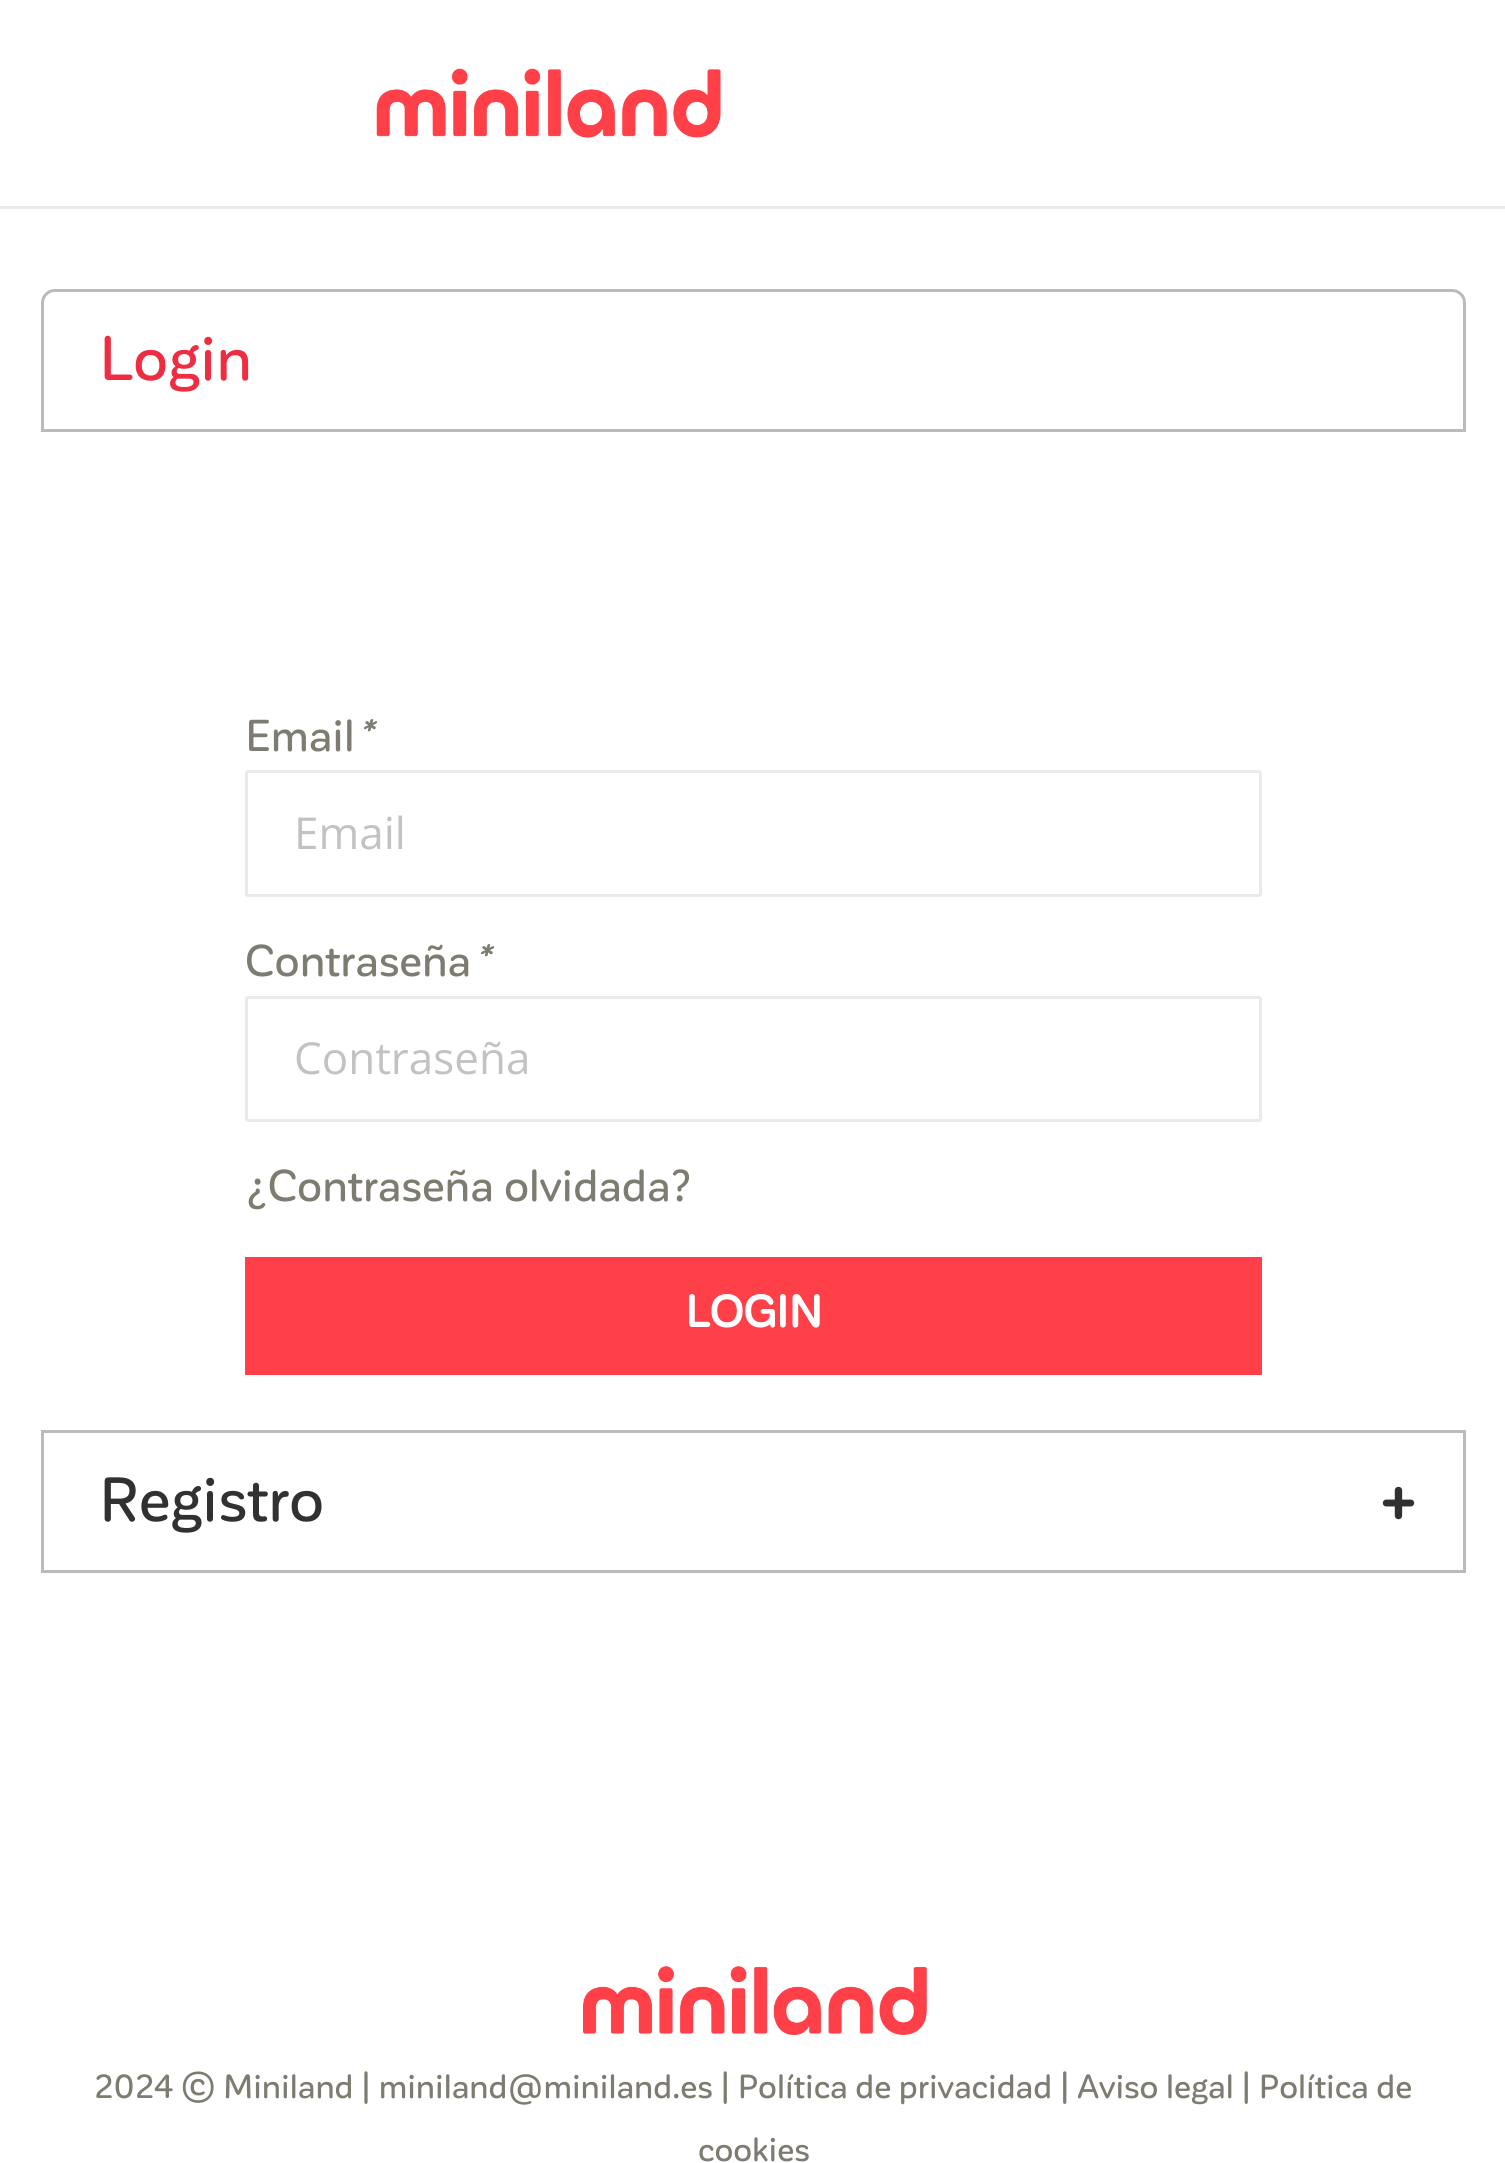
#include <cairo.h>
#include <math.h>
#include <stddef.h>


static void ink(cairo_t *ctx, unsigned color) {
    cairo_set_source_rgb(ctx, (color >> 16) / 255.0, (color >> 8 & 255) / 255.0, (color & 255) / 255.0);
}

static void round_path(cairo_t *ctx, double x, double y, double w, double h, double r) {
    cairo_new_sub_path(ctx);
    cairo_arc(ctx, x + w - r, y + h - r, r, 0, M_PI / 2);
    cairo_arc(ctx, x + r, y + h - r, r, M_PI / 2, M_PI);
    cairo_arc(ctx, x + r, y + r, r, M_PI, 1.5 * M_PI);
    cairo_arc(ctx, x + w - r, y + r, r, 1.5 * M_PI, 2 * M_PI);
    cairo_close_path(ctx);
}

static void paste(cairo_t *ctx, const char *path, double x, double y, double w, double h) {
    cairo_surface_t *image = cairo_image_surface_create_from_png(path);
    cairo_save(ctx);
    cairo_set_source_surface(ctx, image, x, y);
    cairo_rectangle(ctx, x, y, w, h);
    cairo_fill(ctx);
    cairo_restore(ctx);
    cairo_surface_destroy(image);
}

int main(void) {
    cairo_surface_t *surface = cairo_image_surface_create(CAIRO_FORMAT_RGB24, 1505, 2163);
    cairo_t *ctx = cairo_create(surface);
    cairo_font_options_t *options = cairo_font_options_create();
    cairo_font_options_set_hint_metrics(options, CAIRO_HINT_METRICS_OFF);
    cairo_font_options_set_hint_style(options, CAIRO_HINT_STYLE_NONE);
    cairo_set_font_options(ctx, options);
    cairo_set_miter_limit(ctx, 4);
    ink(ctx, 0xFFFFFF);
    cairo_paint(ctx);
    ink(ctx, 0xEAEAEA);
    cairo_rectangle(ctx, 0, 206, 1505, 3);
    cairo_fill(ctx);
    paste(ctx, "media/1.png", 376, 68, 345, 70);
    cairo_new_path(ctx);
    cairo_move_to(ctx, 55, 290.5);
    cairo_line_to(ctx, 1452, 290.5);
    cairo_curve_to(ctx, 1459, 290.5, 1464.5, 296, 1464.5, 303);
    cairo_line_to(ctx, 1464.5, 430.5);
    cairo_line_to(ctx, 42.5, 430.5);
    cairo_line_to(ctx, 42.5, 303);
    cairo_curve_to(ctx, 42.5, 296, 48, 290.5, 55, 290.5);
    cairo_close_path(ctx);
    ink(ctx, 0xBBBBBB);
    cairo_set_line_width(ctx, 3);
    cairo_stroke(ctx);
    cairo_select_font_face(ctx, "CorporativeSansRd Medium", CAIRO_FONT_SLANT_NORMAL, CAIRO_FONT_WEIGHT_NORMAL);
    cairo_set_font_size(ctx, 61.5);
    ink(ctx, 0xEE2D43);
    cairo_move_to(ctx, 99, 380);
    cairo_show_text(ctx, "Login");
    cairo_set_font_size(ctx, 44);
    ink(ctx, 0x7E7C70);
    cairo_move_to(ctx, 245, 751);
    cairo_show_text(ctx, "Email");
    cairo_select_font_face(ctx, "CorporativeSansRd Medium", CAIRO_FONT_SLANT_ITALIC, CAIRO_FONT_WEIGHT_NORMAL);
    cairo_move_to(ctx, 354, 751);
    cairo_show_text(ctx, "*");
    round_path(ctx, 246.5, 771.5, 1014, 124, 1.5);
    ink(ctx, 0xEAEAEA);
    cairo_stroke(ctx);
    cairo_select_font_face(ctx, "Open Sans", CAIRO_FONT_SLANT_NORMAL, CAIRO_FONT_WEIGHT_NORMAL);
    ink(ctx, 0xC2C2C2);
    cairo_move_to(ctx, 294, 849);
    cairo_show_text(ctx, "Email");
    cairo_select_font_face(ctx, "CorporativeSansRd Medium", CAIRO_FONT_SLANT_NORMAL, CAIRO_FONT_WEIGHT_NORMAL);
    ink(ctx, 0x7E7C70);
    cairo_move_to(ctx, 245, 976);
    cairo_show_text(ctx, "Contraseña");
    cairo_select_font_face(ctx, "CorporativeSansRd Medium", CAIRO_FONT_SLANT_ITALIC, CAIRO_FONT_WEIGHT_NORMAL);
    cairo_move_to(ctx, 471, 976);
    cairo_show_text(ctx, "*");
    round_path(ctx, 246.5, 997.5, 1014, 123, 1.5);
    ink(ctx, 0xEAEAEA);
    cairo_stroke(ctx);
    cairo_select_font_face(ctx, "Open Sans", CAIRO_FONT_SLANT_NORMAL, CAIRO_FONT_WEIGHT_NORMAL);
    ink(ctx, 0xC2C2C2);
    cairo_move_to(ctx, 294, 1074);
    cairo_show_text(ctx, "Contraseña");
    cairo_select_font_face(ctx, "CorporativeSansRd Medium", CAIRO_FONT_SLANT_NORMAL, CAIRO_FONT_WEIGHT_NORMAL);
    ink(ctx, 0x7E7C70);
    cairo_move_to(ctx, 245, 1201);
    cairo_show_text(ctx, "¿Contraseña olvidada?");
    ink(ctx, 0xFF4049);
    cairo_rectangle(ctx, 245, 1257, 1017, 118);
    cairo_fill(ctx);
    cairo_select_font_face(ctx, "CorporativeSansRd", CAIRO_FONT_SLANT_NORMAL, CAIRO_FONT_WEIGHT_BOLD);
    ink(ctx, 0xFFFFFF);
    cairo_move_to(ctx, 685, 1327);
    cairo_show_text(ctx, "LOGIN");
    cairo_rectangle(ctx, 42.5, 1431.5, 1422, 140);
    ink(ctx, 0xBBBBBB);
    cairo_stroke(ctx);
    cairo_select_font_face(ctx, "CorporativeSansRd Medium", CAIRO_FONT_SLANT_NORMAL, CAIRO_FONT_WEIGHT_NORMAL);
    cairo_set_font_size(ctx, 61.5);
    ink(ctx, 0x313131);
    cairo_move_to(ctx, 99, 1521);
    cairo_show_text(ctx, "Registro");
    cairo_set_font_size(ctx, 82);
    cairo_move_to(ctx, 1376, 1529);
    cairo_show_text(ctx, "+");
    paste(ctx, "media/2.png", 583, 1966, 344, 69);
    cairo_set_font_size(ctx, 33);
    ink(ctx, 0x7E7C70);
    cairo_move_to(ctx, 94, 2098);
    cairo_show_text(ctx, "2024 © Miniland | miniland@miniland.es | Política de privacidad | Aviso legal | Política de");
    cairo_move_to(ctx, 698, 2161);
    cairo_show_text(ctx, "cookies");
    cairo_surface_write_to_png(surface, "image.png");
    cairo_font_options_destroy(options);
    cairo_destroy(ctx);
    cairo_surface_destroy(surface);
    return 0;
}
